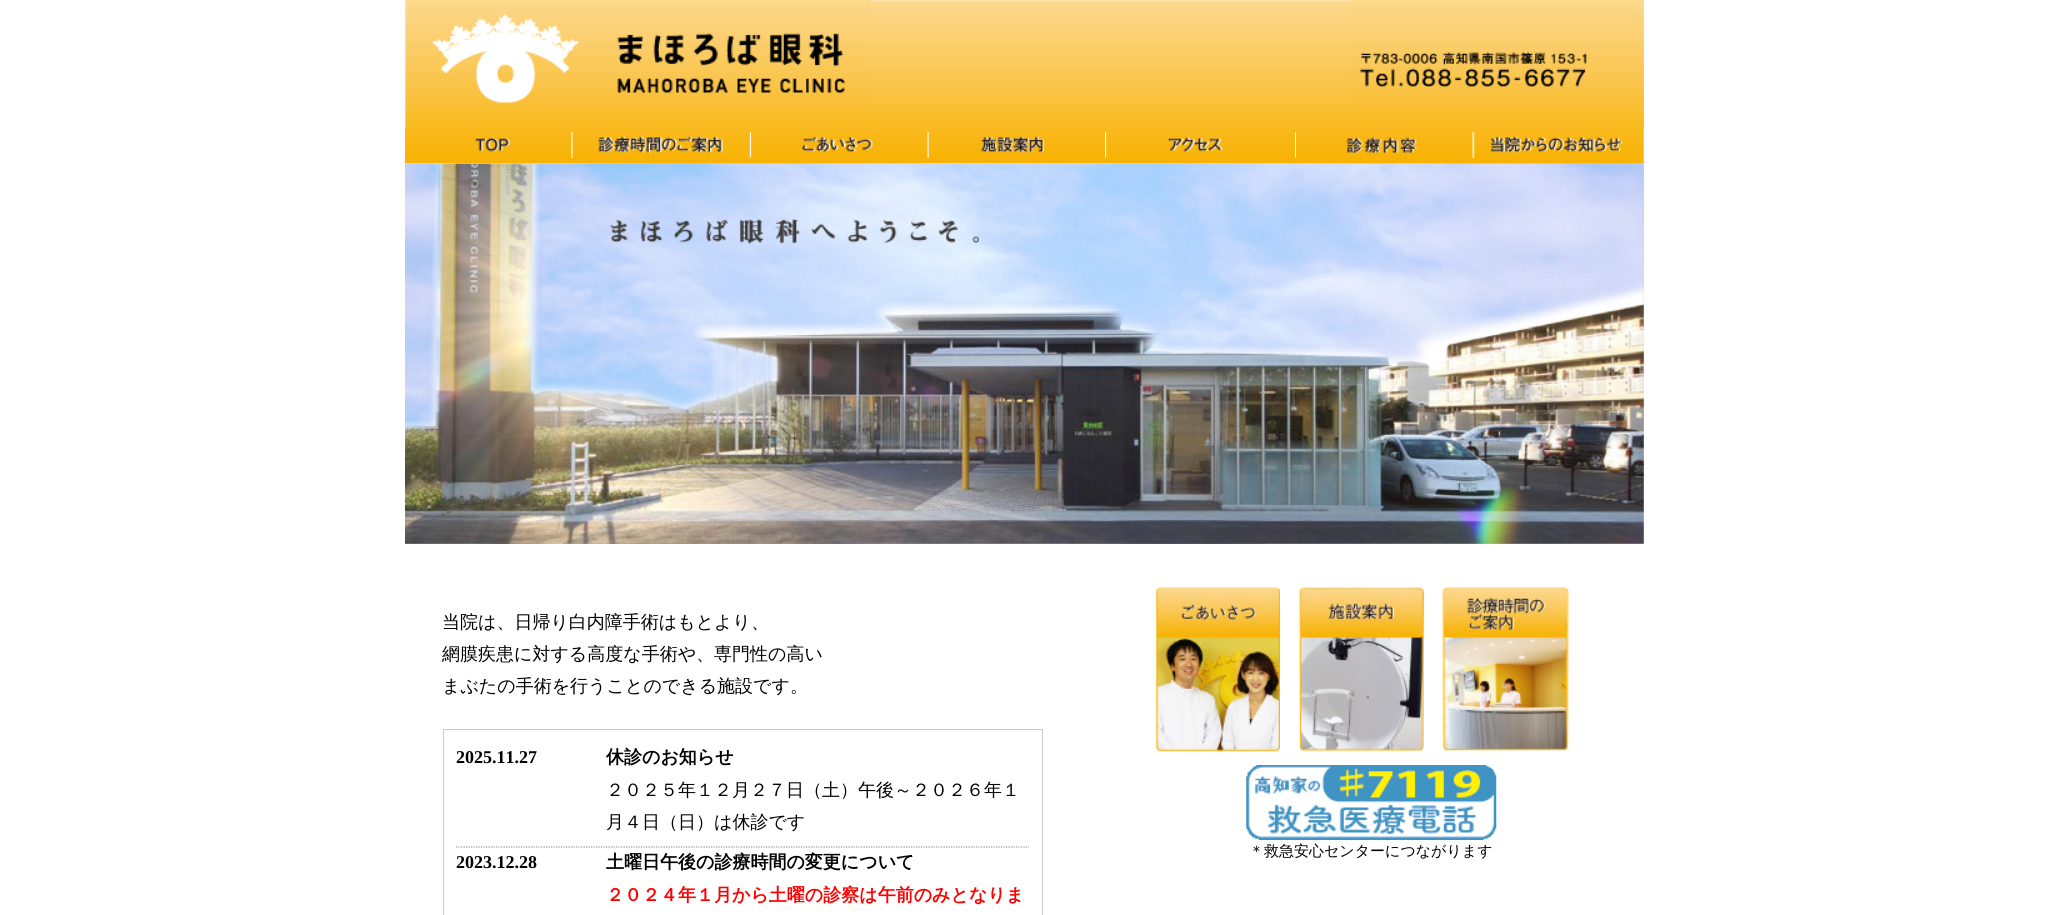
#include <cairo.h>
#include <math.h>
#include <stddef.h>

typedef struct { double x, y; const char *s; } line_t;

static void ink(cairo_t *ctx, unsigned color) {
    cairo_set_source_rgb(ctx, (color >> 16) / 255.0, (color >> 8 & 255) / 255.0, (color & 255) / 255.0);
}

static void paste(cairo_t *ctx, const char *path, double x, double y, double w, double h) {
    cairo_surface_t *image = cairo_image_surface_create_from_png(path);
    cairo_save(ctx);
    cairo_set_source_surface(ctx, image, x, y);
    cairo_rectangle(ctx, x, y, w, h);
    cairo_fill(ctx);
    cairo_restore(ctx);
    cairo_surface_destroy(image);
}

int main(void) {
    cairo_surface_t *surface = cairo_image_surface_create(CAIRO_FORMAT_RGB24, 2047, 915);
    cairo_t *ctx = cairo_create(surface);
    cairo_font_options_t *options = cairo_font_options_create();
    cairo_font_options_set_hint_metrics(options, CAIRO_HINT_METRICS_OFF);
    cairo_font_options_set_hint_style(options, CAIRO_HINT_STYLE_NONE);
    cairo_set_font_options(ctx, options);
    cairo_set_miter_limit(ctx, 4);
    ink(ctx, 0xFFFFFF);
    cairo_paint(ctx);
    paste(ctx, "media/1.png", 405, 0, 1239, 164);
    paste(ctx, "media/2.png", 405, 0, 465, 128);
    paste(ctx, "media/3.png", 1350, 0, 294, 128);
    ink(ctx, 0xFEF9EC);
    cairo_rectangle(ctx, 571, 132, 2, 26);
    cairo_fill(ctx);
    paste(ctx, "media/4.png", 405, 127, 167, 31);
    paste(ctx, "media/5.png", 750, 132, 2, 26);
    paste(ctx, "media/6.png", 572, 132, 178, 27);
    ink(ctx, 0xFEF6E1);
    cairo_rectangle(ctx, 927, 132, 2, 26);
    cairo_fill(ctx);
    paste(ctx, "media/7.png", 751, 132, 177, 26);
    paste(ctx, "media/5.png", 1105, 132, 2, 26);
    paste(ctx, "media/8.png", 928, 132, 177, 26);
    paste(ctx, "media/5.png", 1295, 132, 2, 26);
    paste(ctx, "media/9.png", 1106, 132, 189, 26);
    cairo_rectangle(ctx, 1472, 132, 2, 26);
    cairo_fill(ctx);
    paste(ctx, "media/10.png", 1296, 132, 177, 26);
    paste(ctx, "media/11.png", 1473, 132, 150, 27);
    paste(ctx, "media/12.png", 405, 163, 1239, 381);
    paste(ctx, "media/13.png", 405, 163, 1239, 381);
    paste(ctx, "media/14.png", 405, 163, 1239, 381);
    paste(ctx, "media/15.png", 405, 163, 1239, 381);
    paste(ctx, "media/16.png", 405, 163, 1239, 381);
    cairo_select_font_face(ctx, "WenQuanYi Zen Hei Medium", CAIRO_FONT_SLANT_NORMAL, CAIRO_FONT_WEIGHT_NORMAL);
    cairo_set_font_size(ctx, 18);
    ink(ctx, 0x000000);
    {
        static const line_t items[] = {
            {442, 628, "当院は、日帰り白内障手術はもとより、"},
            {442, 660, "網膜疾患に対する高度な手術や、専門性の高い"},
            {442, 692, "まぶたの手術を行うことのできる施設です。"},
        };
        for (size_t i = 0; i < sizeof items / sizeof *items; i++) {
            cairo_move_to(ctx, items[i].x, items[i].y);
            cairo_show_text(ctx, items[i].s);
        }
    }
    cairo_rectangle(ctx, 443.5, 729.5, 599, 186);
    ink(ctx, 0xCCCCCC);
    cairo_set_line_width(ctx, 1);
    cairo_stroke(ctx);
    cairo_select_font_face(ctx, "Liberation Serif", CAIRO_FONT_SLANT_NORMAL, CAIRO_FONT_WEIGHT_BOLD);
    ink(ctx, 0x000000);
    cairo_move_to(ctx, 456, 763);
    cairo_show_text(ctx, "2025.11.27");
    cairo_new_path(ctx);
    cairo_move_to(ctx, 456, 847);
    cairo_line_to(ctx, 1029, 847);
    ink(ctx, 0x999999);
    cairo_set_line_width(ctx, 1.2);
    cairo_set_dash(ctx, (double[]){1.25, 1.25}, 2, 0);
    cairo_stroke(ctx);
    cairo_select_font_face(ctx, "WenQuanYi Zen Hei", CAIRO_FONT_SLANT_NORMAL, CAIRO_FONT_WEIGHT_BOLD);
    ink(ctx, 0x000000);
    cairo_move_to(ctx, 606, 763);
    cairo_show_text(ctx, "休診のお知らせ");
    cairo_select_font_face(ctx, "WenQuanYi Zen Hei Medium", CAIRO_FONT_SLANT_NORMAL, CAIRO_FONT_WEIGHT_NORMAL);
    cairo_move_to(ctx, 606, 796);
    cairo_show_text(ctx, "２０２５年１２月２７日（土）午後～２０２６年１");
    cairo_move_to(ctx, 606, 828);
    cairo_show_text(ctx, "月４日（日）は休診です");
    cairo_select_font_face(ctx, "Liberation Serif", CAIRO_FONT_SLANT_NORMAL, CAIRO_FONT_WEIGHT_BOLD);
    cairo_move_to(ctx, 456, 868);
    cairo_show_text(ctx, "2023.12.28");
    cairo_select_font_face(ctx, "WenQuanYi Zen Hei", CAIRO_FONT_SLANT_NORMAL, CAIRO_FONT_WEIGHT_BOLD);
    cairo_move_to(ctx, 606, 868);
    cairo_show_text(ctx, "土曜日午後の診療時間の変更について");
    ink(ctx, 0xFF0000);
    cairo_move_to(ctx, 606, 901);
    cairo_show_text(ctx, "２０２４年１月から土曜の診察は午前のみとなりま");
    paste(ctx, "media/17.png", 1155, 587, 125, 166);
    paste(ctx, "media/18.png", 1298, 587, 126, 166);
    paste(ctx, "media/19.png", 1442, 587, 127, 166);
    paste(ctx, "media/20.png", 1246, 765, 251, 75);
    cairo_select_font_face(ctx, "WenQuanYi Zen Hei Medium", CAIRO_FONT_SLANT_NORMAL, CAIRO_FONT_WEIGHT_NORMAL);
    cairo_set_font_size(ctx, 15);
    ink(ctx, 0x000000);
    cairo_move_to(ctx, 1249, 856);
    cairo_show_text(ctx, "＊救急安心センターにつながります");
    cairo_surface_write_to_png(surface, "image.png");
    cairo_font_options_destroy(options);
    cairo_destroy(ctx);
    cairo_surface_destroy(surface);
    return 0;
}
